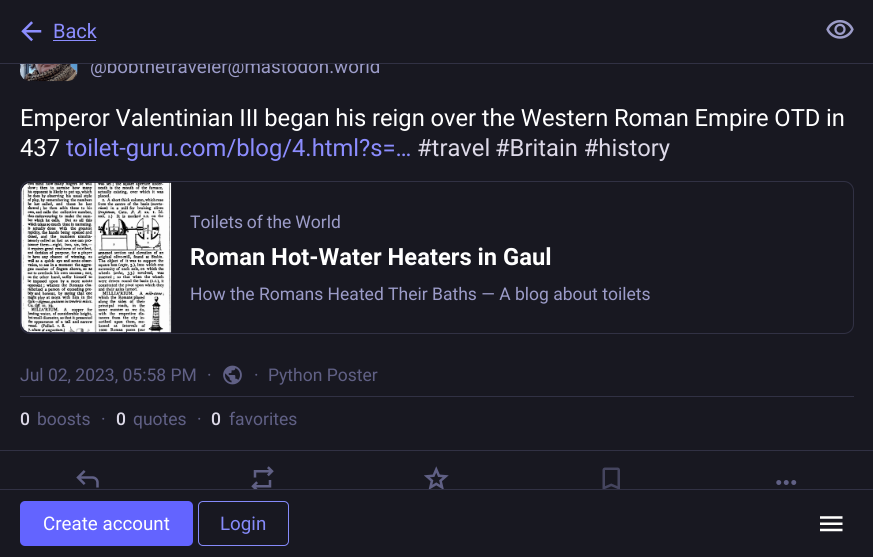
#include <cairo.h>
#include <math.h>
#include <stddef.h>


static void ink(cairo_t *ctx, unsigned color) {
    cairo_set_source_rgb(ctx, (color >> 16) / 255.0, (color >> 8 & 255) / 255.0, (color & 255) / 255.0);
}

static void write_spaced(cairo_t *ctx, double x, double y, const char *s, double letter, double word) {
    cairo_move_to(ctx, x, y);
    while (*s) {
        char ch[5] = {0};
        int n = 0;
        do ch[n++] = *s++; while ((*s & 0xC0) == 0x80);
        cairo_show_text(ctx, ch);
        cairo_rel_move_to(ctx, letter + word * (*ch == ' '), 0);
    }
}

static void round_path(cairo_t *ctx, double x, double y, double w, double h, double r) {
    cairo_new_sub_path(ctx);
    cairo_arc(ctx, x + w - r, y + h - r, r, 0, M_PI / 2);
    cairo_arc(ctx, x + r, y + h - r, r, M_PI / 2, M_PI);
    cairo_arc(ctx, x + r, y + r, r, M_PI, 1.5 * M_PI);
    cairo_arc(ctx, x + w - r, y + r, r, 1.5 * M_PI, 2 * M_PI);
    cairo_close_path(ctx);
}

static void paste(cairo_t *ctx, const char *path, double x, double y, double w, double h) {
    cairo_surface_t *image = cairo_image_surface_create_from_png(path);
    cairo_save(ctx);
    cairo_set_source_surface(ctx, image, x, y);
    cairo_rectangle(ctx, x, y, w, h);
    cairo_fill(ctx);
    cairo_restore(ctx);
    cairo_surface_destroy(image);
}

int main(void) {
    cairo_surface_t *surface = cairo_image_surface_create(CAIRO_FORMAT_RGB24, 873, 557);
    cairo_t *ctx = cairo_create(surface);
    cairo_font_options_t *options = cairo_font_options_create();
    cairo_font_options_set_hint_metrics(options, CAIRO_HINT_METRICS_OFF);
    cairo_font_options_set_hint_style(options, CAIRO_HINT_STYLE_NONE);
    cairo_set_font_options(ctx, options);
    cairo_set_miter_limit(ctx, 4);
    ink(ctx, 0x181821);
    cairo_paint(ctx);
    ink(ctx, 0x20202C);
    round_path(ctx, 20, 24, 58, 57, 10);
    cairo_fill(ctx);
    cairo_select_font_face(ctx, "Roboto", CAIRO_FONT_SLANT_NORMAL, CAIRO_FONT_WEIGHT_NORMAL);
    cairo_set_font_size(ctx, 18.75);
    ink(ctx, 0x9C9CC9);
    cairo_move_to(ctx, 90, 73);
    cairo_show_text(ctx, "@bobthetraveler@mastodon.world");
    ink(ctx, 0x181821);
    cairo_rectangle(ctx, 20, 24, 360, 39);
    cairo_fill(ctx);
    ink(ctx, 0x313144);
    cairo_rectangle(ctx, 0, 63, 873, 1);
    cairo_fill(ctx);
    paste(ctx, "media/1.png", 21, 21, 21, 21);
    cairo_set_font_size(ctx, 20);
    ink(ctx, 0x8C8DFF);
    cairo_move_to(ctx, 53, 38);
    cairo_show_text(ctx, "Back");
    cairo_rectangle(ctx, 53, 40, 43, 1);
    cairo_fill(ctx);
    paste(ctx, "media/2.png", 826, 20, 28, 19);
    paste(ctx, "media/3.png", 20, 64, 58, 18);
    cairo_set_font_size(ctx, 23.75);
    ink(ctx, 0xFFFFFF);
    write_spaced(ctx, 20, 126, "Emperor Valentinian III began his reign over the Western Roman Empire OTD in", 0, -0.25);
    cairo_move_to(ctx, 20, 156);
    cairo_show_text(ctx, "437");
    ink(ctx, 0x8C8DFF);
    cairo_move_to(ctx, 66, 156);
    cairo_show_text(ctx, "toilet-guru.com/blog/4.html?s=…");
    ink(ctx, 0xDDD9E8);
    cairo_move_to(ctx, 417, 156);
    cairo_show_text(ctx, "#travel");
    cairo_move_to(ctx, 495, 156);
    cairo_show_text(ctx, "#Britain #history");
    round_path(ctx, 20.5, 181.5, 833, 152, 9.5);
    ink(ctx, 0x313144);
    cairo_set_line_width(ctx, 1);
    cairo_stroke(ctx);
    cairo_save(ctx);
    round_path(ctx, 21, 183, 832, 150, 9);
    cairo_clip(ctx);
    ink(ctx, 0x3A3A50);
    cairo_new_path(ctx);
    cairo_move_to(ctx, 31, 183);
    cairo_line_to(ctx, 171, 183);
    cairo_line_to(ctx, 171, 333);
    cairo_line_to(ctx, 31, 333);
    cairo_curve_to(ctx, 25.5, 333, 21, 328.5, 21, 323);
    cairo_line_to(ctx, 21, 193);
    cairo_curve_to(ctx, 21, 187.5, 25.5, 183, 31, 183);
    cairo_close_path(ctx);
    cairo_fill(ctx);
    cairo_restore(ctx);
    paste(ctx, "media/4.png", 21, 182, 151, 151);
    cairo_set_font_size(ctx, 17.5);
    ink(ctx, 0x9C9CC9);
    write_spaced(ctx, 190, 228, "Toilets of the World", 0, -0.5);
    cairo_select_font_face(ctx, "Roboto", CAIRO_FONT_SLANT_NORMAL, CAIRO_FONT_WEIGHT_BOLD);
    cairo_set_font_size(ctx, 23.75);
    ink(ctx, 0xFFFFFF);
    cairo_move_to(ctx, 190, 265);
    cairo_show_text(ctx, "Roman Hot-Water Heaters in Gaul");
    cairo_select_font_face(ctx, "Roboto", CAIRO_FONT_SLANT_NORMAL, CAIRO_FONT_WEIGHT_NORMAL);
    cairo_set_font_size(ctx, 17.5);
    ink(ctx, 0x9C9CC9);
    cairo_move_to(ctx, 190, 300);
    cairo_show_text(ctx, "How the Romans Heated Their Baths — A blog about toilets");
    ink(ctx, 0x313144);
    cairo_rectangle(ctx, 20, 396, 834, 1);
    cairo_fill(ctx);
    ink(ctx, 0x606085);
    cairo_move_to(ctx, 20, 381);
    cairo_show_text(ctx, "Jul 02, 2023, 05:58 PM");
    cairo_move_to(ctx, 207, 381);
    cairo_show_text(ctx, "·");
    paste(ctx, "media/5.png", 223, 365, 19, 20);
    cairo_move_to(ctx, 254, 381);
    cairo_show_text(ctx, "·");
    cairo_move_to(ctx, 268, 381);
    cairo_show_text(ctx, "Python Poster");
    cairo_select_font_face(ctx, "Roboto Medium", CAIRO_FONT_SLANT_NORMAL, CAIRO_FONT_WEIGHT_NORMAL);
    ink(ctx, 0xDDD9E8);
    cairo_move_to(ctx, 20, 425);
    cairo_show_text(ctx, "0");
    cairo_select_font_face(ctx, "Roboto", CAIRO_FONT_SLANT_NORMAL, CAIRO_FONT_WEIGHT_NORMAL);
    ink(ctx, 0x606085);
    cairo_move_to(ctx, 37, 425);
    cairo_show_text(ctx, "boosts");
    cairo_move_to(ctx, 101, 425);
    cairo_show_text(ctx, "·");
    cairo_select_font_face(ctx, "Roboto Medium", CAIRO_FONT_SLANT_NORMAL, CAIRO_FONT_WEIGHT_NORMAL);
    ink(ctx, 0xDDD9E8);
    cairo_move_to(ctx, 116, 425);
    cairo_show_text(ctx, "0");
    cairo_select_font_face(ctx, "Roboto", CAIRO_FONT_SLANT_NORMAL, CAIRO_FONT_WEIGHT_NORMAL);
    ink(ctx, 0x606085);
    cairo_move_to(ctx, 133, 425);
    cairo_show_text(ctx, "quotes");
    cairo_move_to(ctx, 197, 425);
    cairo_show_text(ctx, "·");
    cairo_select_font_face(ctx, "Roboto Medium", CAIRO_FONT_SLANT_NORMAL, CAIRO_FONT_WEIGHT_NORMAL);
    ink(ctx, 0xDDD9E8);
    cairo_move_to(ctx, 211, 425);
    cairo_show_text(ctx, "0");
    cairo_select_font_face(ctx, "Roboto", CAIRO_FONT_SLANT_NORMAL, CAIRO_FONT_WEIGHT_NORMAL);
    ink(ctx, 0x606085);
    cairo_move_to(ctx, 229, 425);
    cairo_show_text(ctx, "favorites");
    ink(ctx, 0x313144);
    cairo_rectangle(ctx, 0, 450, 873, 1);
    cairo_fill(ctx);
    paste(ctx, "media/6.png", 76, 470, 23, 18);
    paste(ctx, "media/7.png", 251, 466, 23, 23);
    paste(ctx, "media/8.png", 424, 466, 25, 23);
    paste(ctx, "media/9.png", 602, 467, 18, 22);
    paste(ctx, "media/10.png", 776, 480, 21, 5);
    cairo_rectangle(ctx, 0, 489, 873, 1);
    cairo_fill(ctx);
    ink(ctx, 0x6364FF);
    round_path(ctx, 20, 501, 173, 45, 5);
    cairo_fill(ctx);
    cairo_set_font_size(ctx, 18.75);
    ink(ctx, 0xFFFFFF);
    cairo_move_to(ctx, 43, 530);
    cairo_show_text(ctx, "Create account");
    round_path(ctx, 198.5, 501.5, 90, 44, 4.5);
    ink(ctx, 0x858AFA);
    cairo_stroke(ctx);
    cairo_move_to(ctx, 220, 530);
    cairo_show_text(ctx, "Login");
    paste(ctx, "media/11.png", 820, 516, 23, 16);
    cairo_surface_write_to_png(surface, "image.png");
    cairo_font_options_destroy(options);
    cairo_destroy(ctx);
    cairo_surface_destroy(surface);
    return 0;
}
